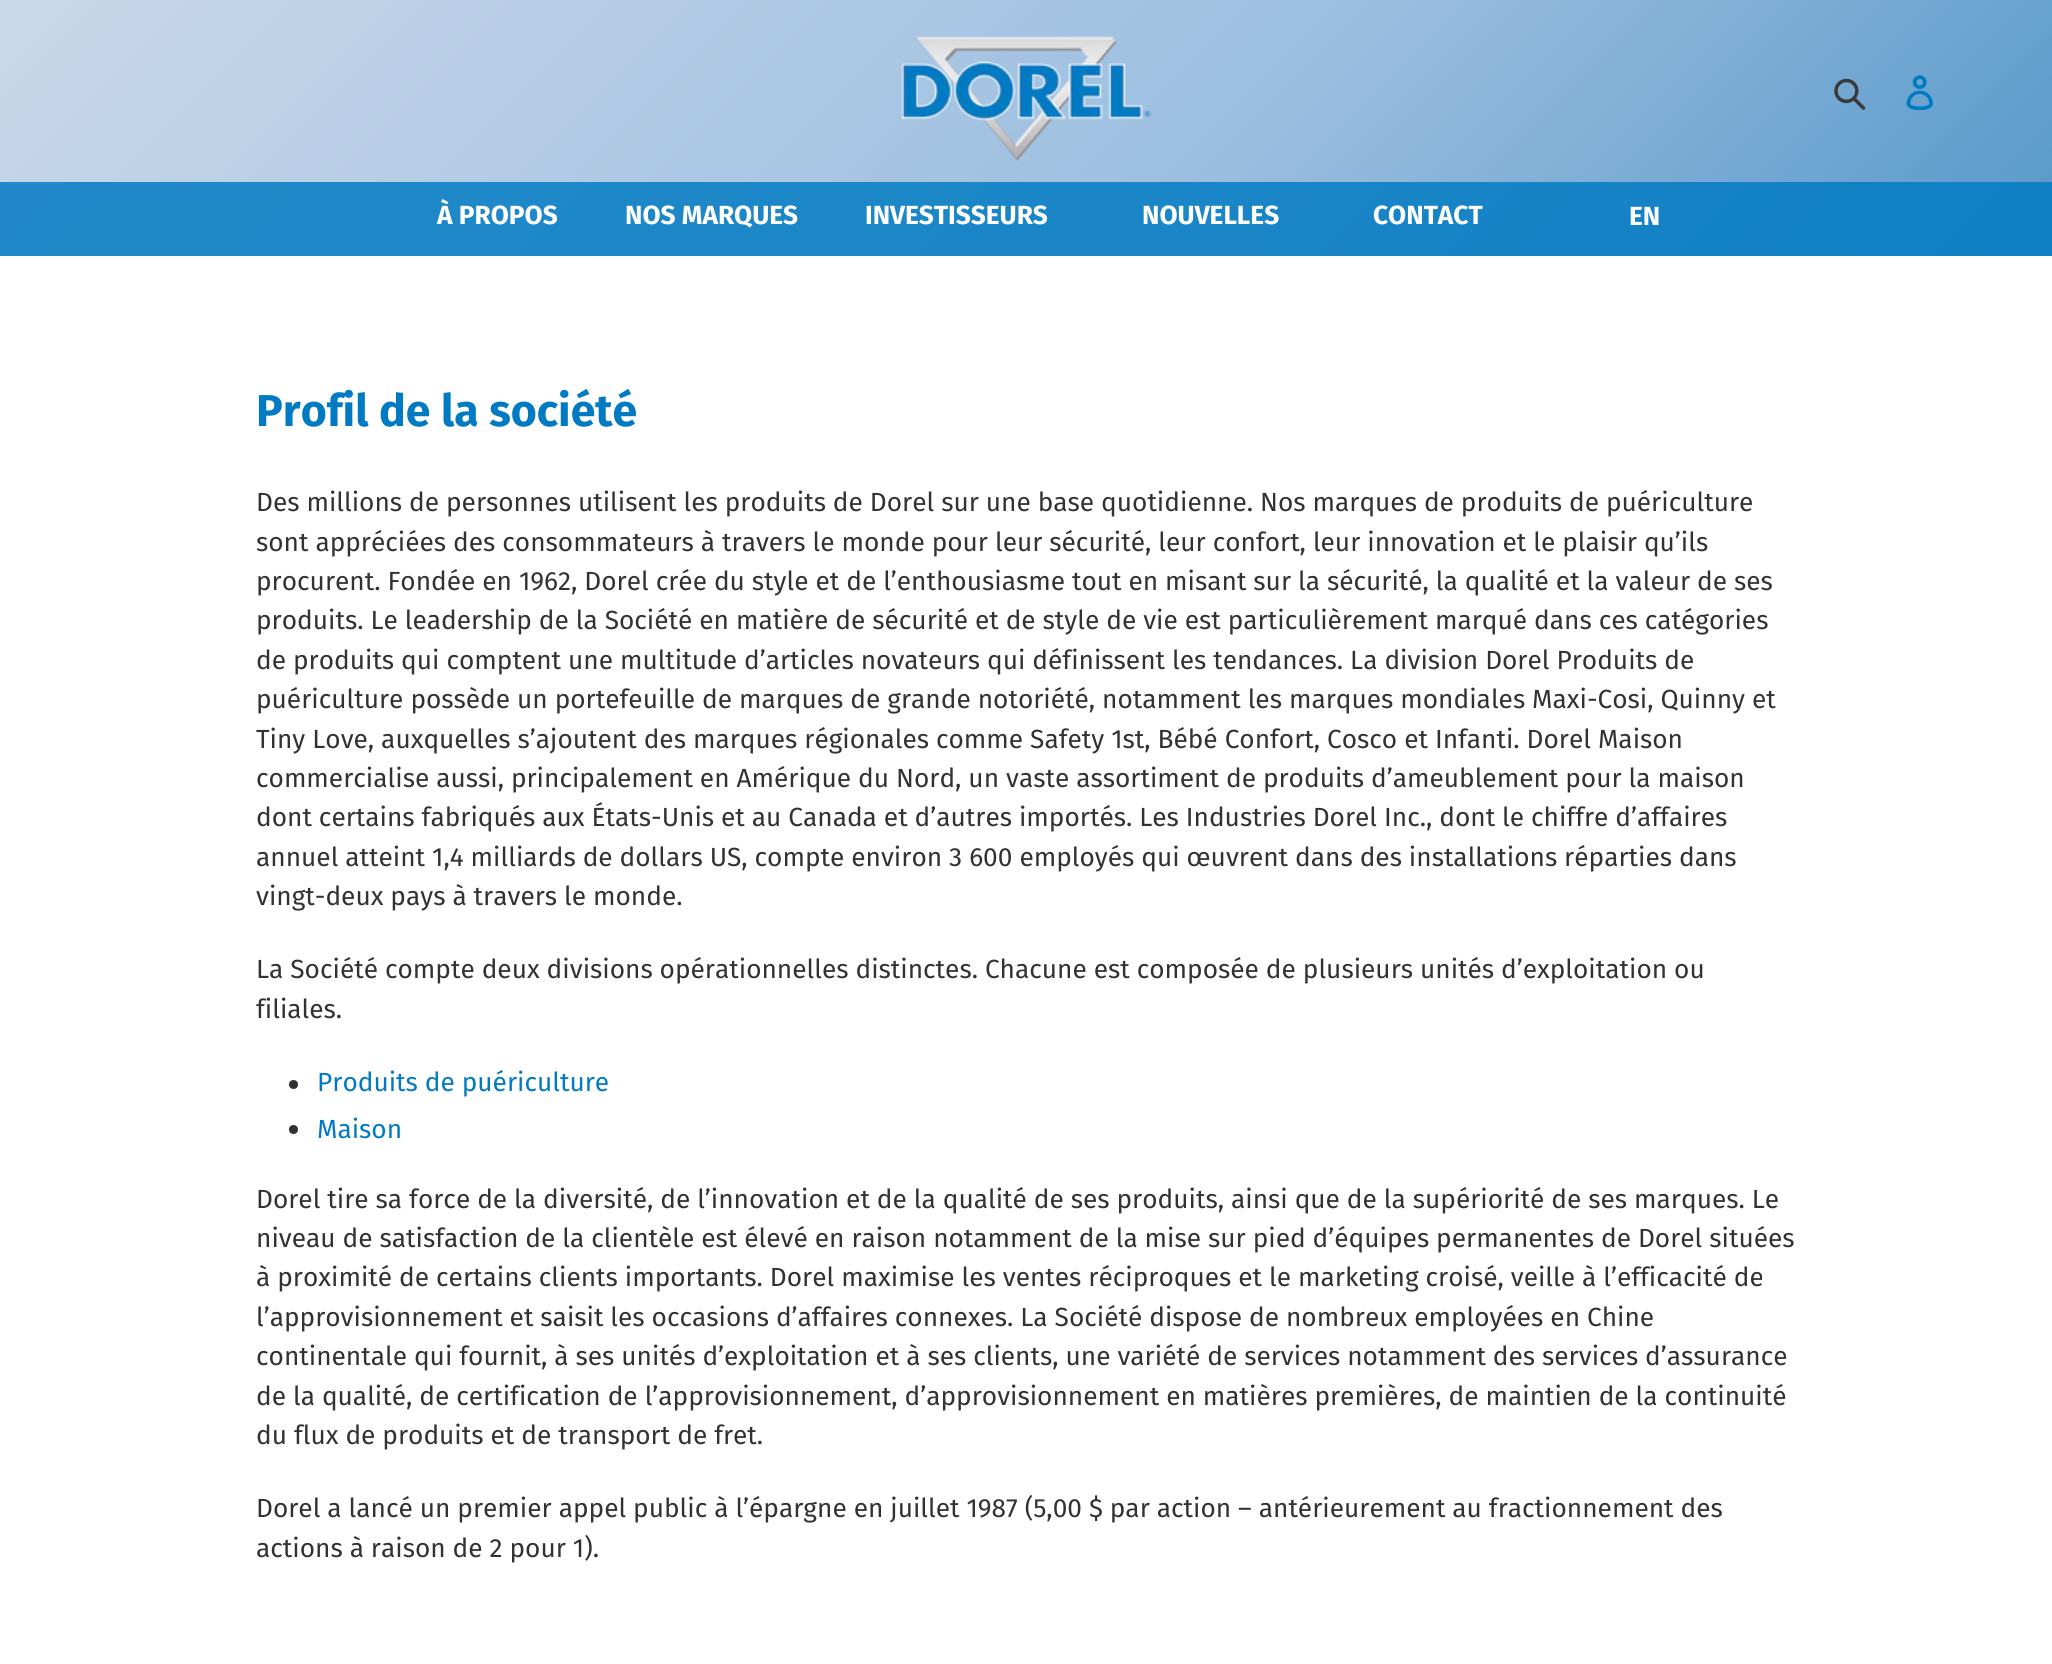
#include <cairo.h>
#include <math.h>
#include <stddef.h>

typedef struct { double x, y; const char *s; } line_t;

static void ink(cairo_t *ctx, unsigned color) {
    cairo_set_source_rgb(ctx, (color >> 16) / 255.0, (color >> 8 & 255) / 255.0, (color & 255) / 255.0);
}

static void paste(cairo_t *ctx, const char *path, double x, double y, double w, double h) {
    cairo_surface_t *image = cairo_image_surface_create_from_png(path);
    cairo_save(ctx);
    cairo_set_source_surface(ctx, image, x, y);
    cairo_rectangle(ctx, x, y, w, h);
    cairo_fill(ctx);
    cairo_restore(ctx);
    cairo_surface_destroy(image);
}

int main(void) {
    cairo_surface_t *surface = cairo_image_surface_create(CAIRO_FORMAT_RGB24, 2052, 1664);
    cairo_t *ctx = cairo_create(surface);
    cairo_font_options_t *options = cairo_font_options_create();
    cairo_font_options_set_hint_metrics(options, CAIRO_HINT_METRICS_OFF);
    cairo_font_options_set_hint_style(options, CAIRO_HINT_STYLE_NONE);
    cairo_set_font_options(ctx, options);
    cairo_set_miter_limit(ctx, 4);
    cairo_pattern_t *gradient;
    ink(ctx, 0xFFFFFF);
    cairo_paint(ctx);
    gradient = cairo_pattern_create_linear(449, -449, 1603, 705);
    cairo_pattern_add_color_stop_rgba(gradient, 0, 0.792, 0.847, 0.918, 1);
    cairo_pattern_add_color_stop_rgba(gradient, 0.6, 0.608, 0.745, 0.878, 1);
    cairo_pattern_add_color_stop_rgba(gradient, 1, 0.337, 0.596, 0.788, 1);
    cairo_set_source(ctx, gradient);
    cairo_pattern_destroy(gradient);
    cairo_rectangle(ctx, 0, 0, 2052, 182);
    cairo_fill(ctx);
    gradient = cairo_pattern_create_linear(449, -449, 1603, 705);
    cairo_pattern_add_color_stop_rgba(gradient, 0, 0.133, 0.541, 0.788, 1);
    cairo_pattern_add_color_stop_rgba(gradient, 0.6, 0.102, 0.525, 0.78, 1);
    cairo_pattern_add_color_stop_rgba(gradient, 1, 0.059, 0.498, 0.765, 1);
    cairo_set_source(ctx, gradient);
    cairo_pattern_destroy(gradient);
    cairo_rectangle(ctx, 0, 182, 2052, 74);
    cairo_fill(ctx);
    paste(ctx, "media/1.png", 901, 36, 251, 125);
    paste(ctx, "media/2.png", 1834, 78, 32, 32);
    paste(ctx, "media/3.png", 1906, 75, 27, 35);
    cairo_select_font_face(ctx, "Fira Sans", CAIRO_FONT_SLANT_NORMAL, CAIRO_FONT_WEIGHT_BOLD);
    cairo_set_font_size(ctx, 26.25);
    ink(ctx, 0xFFFFFF);
    {
        static const line_t items[] = {
            {437, 224, "À PROPOS"},
            {625, 224, "NOS MARQUES"},
            {865, 224, "INVESTISSEURS"},
            {1142, 224, "NOUVELLES"},
            {1373, 224, "CONTACT"},
            {1629, 225, "EN"},
        };
        for (size_t i = 0; i < sizeof items / sizeof *items; i++) {
            cairo_move_to(ctx, items[i].x, items[i].y);
            cairo_show_text(ctx, items[i].s);
        }
    }
    cairo_set_font_size(ctx, 44.6);
    ink(ctx, 0x007AC2);
    cairo_move_to(ctx, 256, 426);
    cairo_show_text(ctx, "Profil de la société");
    cairo_select_font_face(ctx, "Fira Sans", CAIRO_FONT_SLANT_NORMAL, CAIRO_FONT_WEIGHT_NORMAL);
    cairo_set_font_size(ctx, 26.25);
    ink(ctx, 0x333232);
    {
        static const line_t items[] = {
            {256, 511, "Des millions de personnes utilisent les produits de Dorel sur une base quotidienne. Nos marques de produits de puériculture"},
            {256, 551, "sont appréciées des consommateurs à travers le monde pour leur sécurité, leur confort, leur innovation et le plaisir qu’ils"},
            {256, 590, "procurent. Fondée en 1962, Dorel crée du style et de l’enthousiasme tout en misant sur la sécurité, la qualité et la valeur de ses"},
            {256, 629, "produits. Le leadership de la Société en matière de sécurité et de style de vie est particulièrement marqué dans ces catégories"},
            {256, 669, "de produits qui comptent une multitude d’articles novateurs qui définissent les tendances. La division Dorel Produits de"},
            {256, 708, "puériculture possède un portefeuille de marques de grande notoriété, notamment les marques mondiales Maxi-Cosi, Quinny et"},
            {256, 748, "Tiny Love, auxquelles s’ajoutent des marques régionales comme Safety 1st, Bébé Confort, Cosco et Infanti. Dorel Maison"},
            {256, 787, "commercialise aussi, principalement en Amérique du Nord, un vaste assortiment de produits d’ameublement pour la maison"},
            {256, 826, "dont certains fabriqués aux États-Unis et au Canada et d’autres importés. Les Industries Dorel Inc., dont le chiffre d’affaires"},
            {256, 866, "annuel atteint 1,4 milliards de dollars US, compte environ 3 600 employés qui œuvrent dans des installations réparties dans"},
            {256, 905, "vingt-deux pays à travers le monde."},
            {256, 978, "La Société compte deux divisions opérationnelles distinctes. Chacune est composée de plusieurs unités d’exploitation ou"},
            {256, 1018, "filiales."},
        };
        for (size_t i = 0; i < sizeof items / sizeof *items; i++) {
            cairo_move_to(ctx, items[i].x, items[i].y);
            cairo_show_text(ctx, items[i].s);
        }
    }
    cairo_new_path(ctx);
    cairo_arc(ctx, 293.5, 1084.5, 4.5, 0, 2 * M_PI);
    cairo_fill(ctx);
    ink(ctx, 0x007AC2);
    cairo_move_to(ctx, 317, 1091);
    cairo_show_text(ctx, "Produits de puériculture");
    ink(ctx, 0x333232);
    cairo_new_path(ctx);
    cairo_arc(ctx, 293.5, 1129.5, 4.5, 0, 2 * M_PI);
    cairo_fill(ctx);
    ink(ctx, 0x007AC2);
    cairo_move_to(ctx, 317, 1138);
    cairo_show_text(ctx, "Maison");
    ink(ctx, 0x333232);
    {
        static const line_t items[] = {
            {256, 1208, "Dorel tire sa force de la diversité, de l’innovation et de la qualité de ses produits, ainsi que de la supériorité de ses marques. Le"},
            {256, 1247, "niveau de satisfaction de la clientèle est élevé en raison notamment de la mise sur pied d’équipes permanentes de Dorel situées"},
            {256, 1286, "à proximité de certains clients importants. Dorel maximise les ventes réciproques et le marketing croisé, veille à l’efficacité de"},
            {256, 1326, "l’approvisionnement et saisit les occasions d’affaires connexes. La Société dispose de nombreux employées en Chine"},
            {256, 1365, "continentale qui fournit, à ses unités d’exploitation et à ses clients, une variété de services notamment des services d’assurance"},
            {256, 1405, "de la qualité, de certification de l’approvisionnement, d’approvisionnement en matières premières, de maintien de la continuité"},
            {256, 1444, "du flux de produits et de transport de fret."},
            {256, 1517, "Dorel a lancé un premier appel public à l’épargne en juillet 1987 (5,00 $ par action – antérieurement au fractionnement des"},
            {256, 1557, "actions à raison de 2 pour 1)."},
        };
        for (size_t i = 0; i < sizeof items / sizeof *items; i++) {
            cairo_move_to(ctx, items[i].x, items[i].y);
            cairo_show_text(ctx, items[i].s);
        }
    }
    cairo_surface_write_to_png(surface, "image.png");
    cairo_font_options_destroy(options);
    cairo_destroy(ctx);
    cairo_surface_destroy(surface);
    return 0;
}
